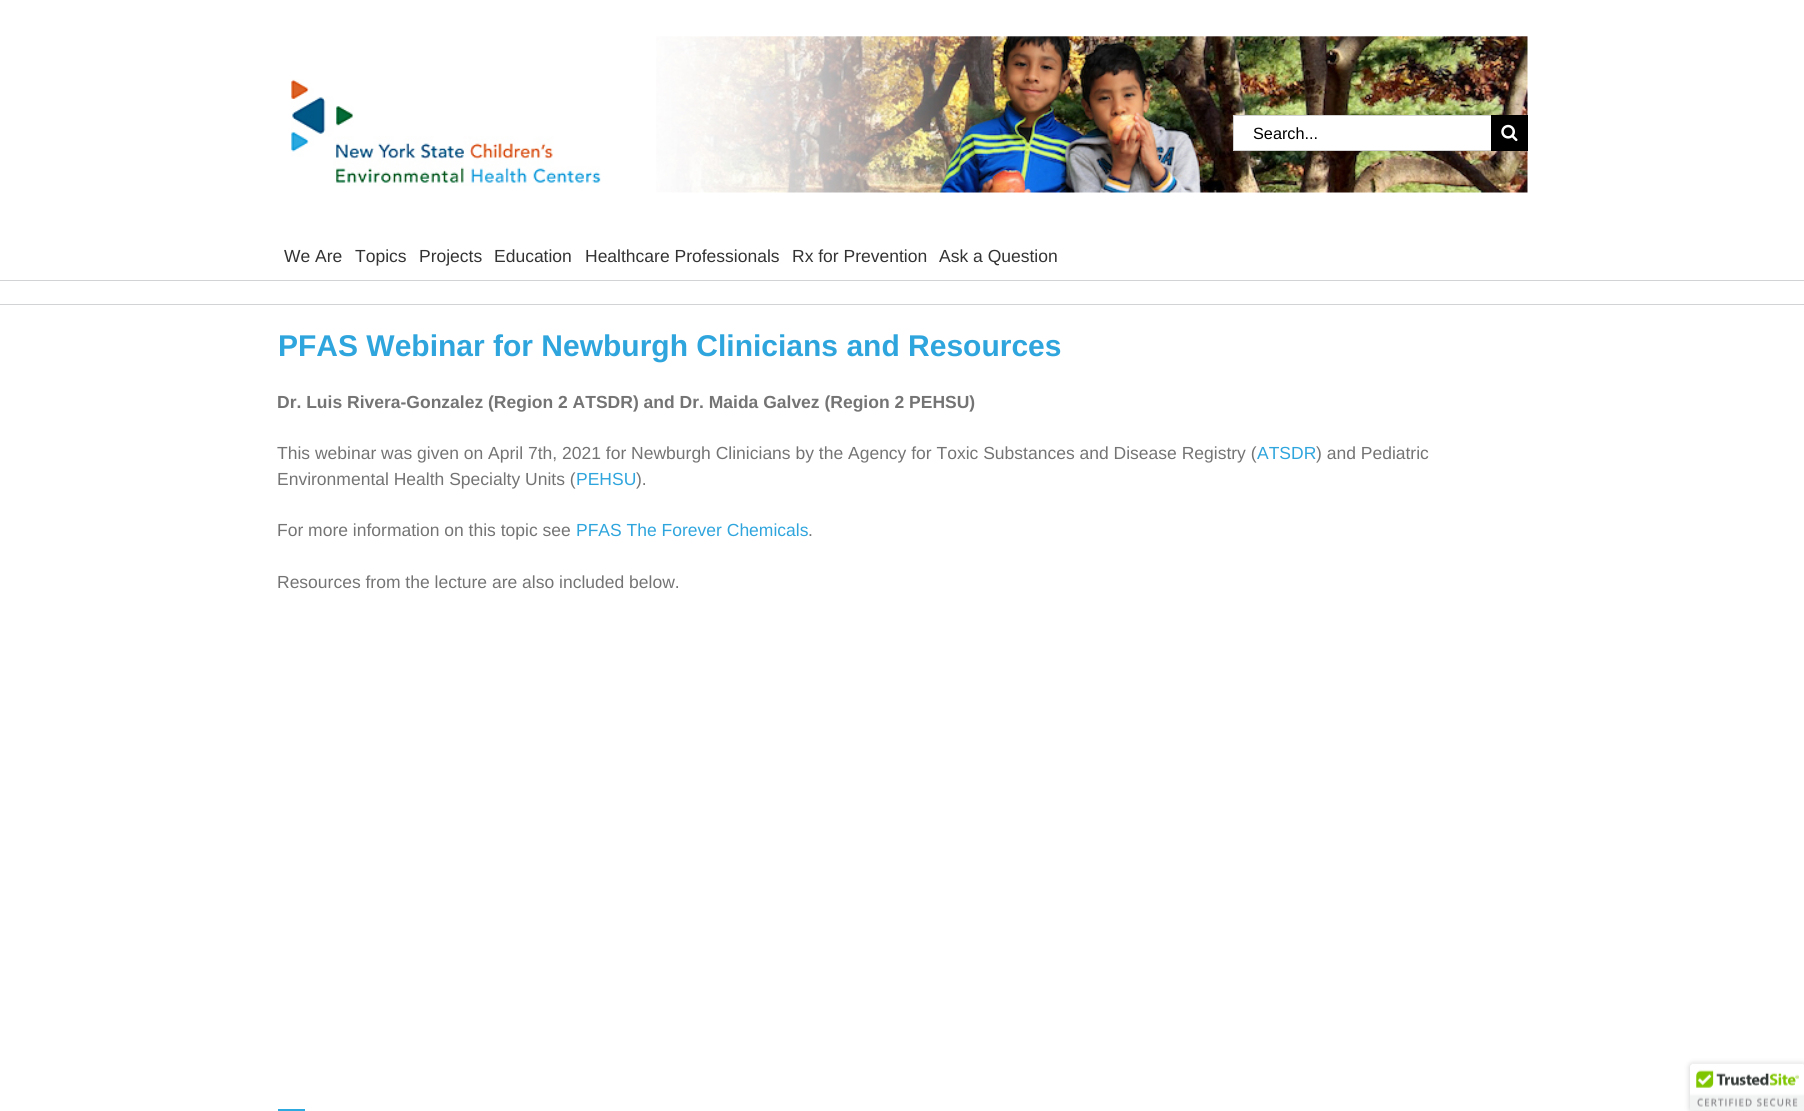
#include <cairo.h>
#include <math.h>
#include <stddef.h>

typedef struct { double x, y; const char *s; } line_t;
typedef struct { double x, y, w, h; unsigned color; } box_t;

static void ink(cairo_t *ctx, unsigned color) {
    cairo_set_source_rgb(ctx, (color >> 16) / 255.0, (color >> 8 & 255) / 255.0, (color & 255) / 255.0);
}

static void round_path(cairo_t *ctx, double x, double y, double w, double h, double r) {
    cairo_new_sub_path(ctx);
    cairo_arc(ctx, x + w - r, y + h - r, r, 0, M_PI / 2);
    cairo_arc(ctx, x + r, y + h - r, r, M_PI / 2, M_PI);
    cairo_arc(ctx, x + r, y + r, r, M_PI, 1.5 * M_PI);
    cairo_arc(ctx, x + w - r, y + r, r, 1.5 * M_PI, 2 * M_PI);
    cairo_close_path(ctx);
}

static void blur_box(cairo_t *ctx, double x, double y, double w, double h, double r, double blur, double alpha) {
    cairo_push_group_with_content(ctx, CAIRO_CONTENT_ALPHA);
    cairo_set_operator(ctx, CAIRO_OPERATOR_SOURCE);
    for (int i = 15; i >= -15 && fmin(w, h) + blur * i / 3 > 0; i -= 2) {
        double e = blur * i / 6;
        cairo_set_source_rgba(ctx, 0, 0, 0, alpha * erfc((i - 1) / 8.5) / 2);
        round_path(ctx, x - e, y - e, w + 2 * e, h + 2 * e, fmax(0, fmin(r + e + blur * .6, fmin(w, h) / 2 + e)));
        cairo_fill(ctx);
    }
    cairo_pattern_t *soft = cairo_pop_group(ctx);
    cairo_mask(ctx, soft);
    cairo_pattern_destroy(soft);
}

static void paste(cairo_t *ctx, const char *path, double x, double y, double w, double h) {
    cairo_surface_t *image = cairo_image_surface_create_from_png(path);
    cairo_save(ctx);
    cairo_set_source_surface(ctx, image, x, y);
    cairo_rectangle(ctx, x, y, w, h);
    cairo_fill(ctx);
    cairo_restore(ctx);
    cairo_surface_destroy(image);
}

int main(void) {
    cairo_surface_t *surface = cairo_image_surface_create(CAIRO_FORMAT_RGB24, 1804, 1111);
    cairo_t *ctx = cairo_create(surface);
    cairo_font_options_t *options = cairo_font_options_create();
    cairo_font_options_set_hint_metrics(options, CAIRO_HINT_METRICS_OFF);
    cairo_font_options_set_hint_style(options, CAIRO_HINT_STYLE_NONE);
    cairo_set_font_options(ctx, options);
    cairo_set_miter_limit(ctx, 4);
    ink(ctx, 0xFFFFFF);
    cairo_paint(ctx);
    paste(ctx, "media/1.png", 656, 36, 872, 157);
    paste(ctx, "media/2.png", 291, 79, 310, 107);
    {
        static const box_t items[] = {
            {1234, 116, 257, 34, 0xFFFFFF},
            {1233, 115, 258, 1, 0xD2D2D2},
            {1233, 150, 258, 1, 0xD2D2D2},
            {1233, 115, 1, 36, 0xD2D2D2},
        };
        for (size_t i = 0; i < sizeof items / sizeof *items; i++) {
            ink(ctx, items[i].color);
            cairo_rectangle(ctx, items[i].x, items[i].y, items[i].w, items[i].h);
            cairo_fill(ctx);
        }
    }
    cairo_select_font_face(ctx, "Liberation Sans", CAIRO_FONT_SLANT_NORMAL, CAIRO_FONT_WEIGHT_NORMAL);
    cairo_set_font_size(ctx, 16.25);
    ink(ctx, 0x000000);
    cairo_move_to(ctx, 1253, 139);
    cairo_show_text(ctx, "Search...");
    cairo_rectangle(ctx, 1491, 115, 37, 36);
    cairo_fill(ctx);
    paste(ctx, "media/3.png", 1501, 124, 17, 18);
    cairo_set_font_size(ctx, 17.5);
    ink(ctx, 0x333333);
    {
        static const line_t items[] = {
            {284, 262, "We Are"},
            {355, 262, "Topics"},
            {419, 262, "Projects"},
            {494, 262, "Education"},
            {585, 262, "Healthcare Professionals"},
            {792, 262, "Rx for Prevention"},
            {939, 262, "Ask a Question"},
        };
        for (size_t i = 0; i < sizeof items / sizeof *items; i++) {
            cairo_move_to(ctx, items[i].x, items[i].y);
            cairo_show_text(ctx, items[i].s);
        }
    }
    ink(ctx, 0xD2D3D4);
    cairo_rectangle(ctx, 0, 280, 1804, 1);
    cairo_fill(ctx);
    cairo_rectangle(ctx, 0, 304, 1804, 1);
    cairo_fill(ctx);
    cairo_select_font_face(ctx, "Liberation Sans", CAIRO_FONT_SLANT_NORMAL, CAIRO_FONT_WEIGHT_BOLD);
    cairo_set_font_size(ctx, 30);
    ink(ctx, 0x2FA5DD);
    cairo_move_to(ctx, 278, 356);
    cairo_show_text(ctx, "PFAS Webinar for Newburgh Clinicians and Resources");
    cairo_set_font_size(ctx, 17.5);
    ink(ctx, 0x747474);
    cairo_move_to(ctx, 277, 408);
    cairo_show_text(ctx, "Dr. Luis Rivera-Gonzalez (Region 2 ATSDR) and Dr. Maida Galvez (Region 2 PEHSU)");
    cairo_select_font_face(ctx, "Liberation Sans", CAIRO_FONT_SLANT_NORMAL, CAIRO_FONT_WEIGHT_NORMAL);
    cairo_move_to(ctx, 277, 459);
    cairo_show_text(ctx, "This webinar was given on April 7th, 2021 for Newburgh Clinicians by the Agency for Toxic Substances and Disease Registry (");
    ink(ctx, 0x2FA5DD);
    cairo_move_to(ctx, 1257, 459);
    cairo_show_text(ctx, "ATSDR");
    ink(ctx, 0x747474);
    cairo_move_to(ctx, 1316, 459);
    cairo_show_text(ctx, ") and Pediatric");
    cairo_move_to(ctx, 277, 485);
    cairo_show_text(ctx, "Environmental Health Specialty Units (");
    ink(ctx, 0x2FA5DD);
    cairo_move_to(ctx, 576, 485);
    cairo_show_text(ctx, "PEHSU");
    ink(ctx, 0x747474);
    cairo_move_to(ctx, 636, 485);
    cairo_show_text(ctx, ").");
    cairo_move_to(ctx, 277, 536);
    cairo_show_text(ctx, "For more information on this topic see");
    ink(ctx, 0x2FA5DD);
    cairo_move_to(ctx, 576, 536);
    cairo_show_text(ctx, "PFAS The Forever Chemicals");
    ink(ctx, 0x747474);
    cairo_move_to(ctx, 808, 536);
    cairo_show_text(ctx, ".");
    cairo_move_to(ctx, 277, 588);
    cairo_show_text(ctx, "Resources from the lecture are also included below.");
    ink(ctx, 0x2DA9E0);
    cairo_rectangle(ctx, 278, 1109, 27, 2);
    cairo_fill(ctx);
    ink(ctx, 0x000000);
    blur_box(ctx, 1690, 1064, 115, 47, 2.5, 3, 0.2);
    paste(ctx, "media/4.png", 1690, 1063, 114, 48);
    cairo_surface_write_to_png(surface, "image.png");
    cairo_font_options_destroy(options);
    cairo_destroy(ctx);
    cairo_surface_destroy(surface);
    return 0;
}
